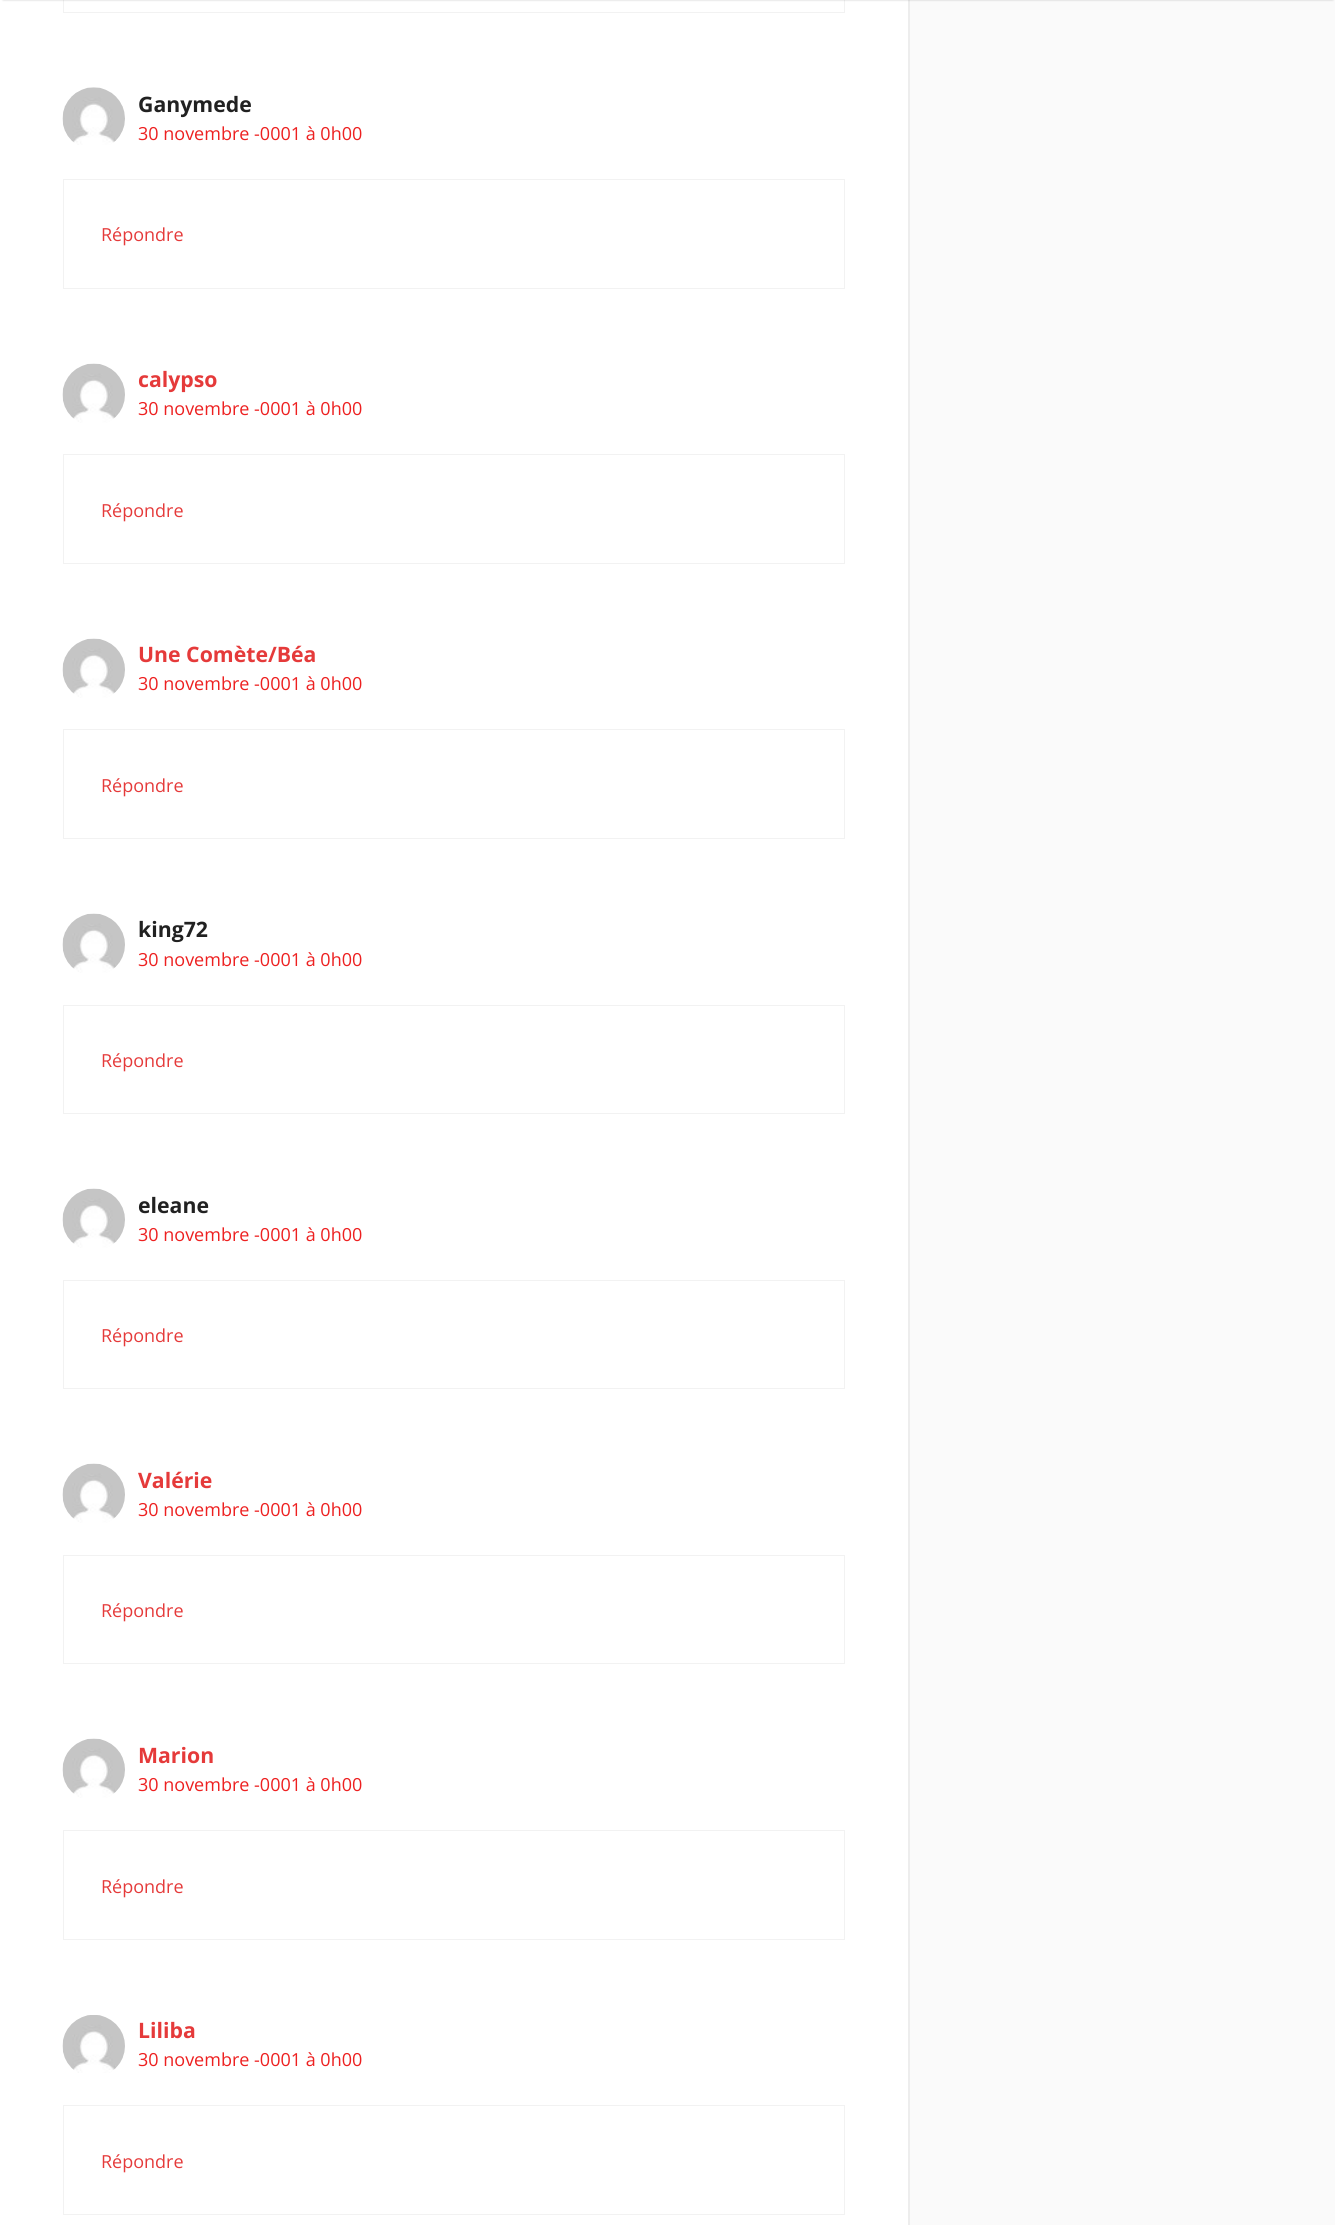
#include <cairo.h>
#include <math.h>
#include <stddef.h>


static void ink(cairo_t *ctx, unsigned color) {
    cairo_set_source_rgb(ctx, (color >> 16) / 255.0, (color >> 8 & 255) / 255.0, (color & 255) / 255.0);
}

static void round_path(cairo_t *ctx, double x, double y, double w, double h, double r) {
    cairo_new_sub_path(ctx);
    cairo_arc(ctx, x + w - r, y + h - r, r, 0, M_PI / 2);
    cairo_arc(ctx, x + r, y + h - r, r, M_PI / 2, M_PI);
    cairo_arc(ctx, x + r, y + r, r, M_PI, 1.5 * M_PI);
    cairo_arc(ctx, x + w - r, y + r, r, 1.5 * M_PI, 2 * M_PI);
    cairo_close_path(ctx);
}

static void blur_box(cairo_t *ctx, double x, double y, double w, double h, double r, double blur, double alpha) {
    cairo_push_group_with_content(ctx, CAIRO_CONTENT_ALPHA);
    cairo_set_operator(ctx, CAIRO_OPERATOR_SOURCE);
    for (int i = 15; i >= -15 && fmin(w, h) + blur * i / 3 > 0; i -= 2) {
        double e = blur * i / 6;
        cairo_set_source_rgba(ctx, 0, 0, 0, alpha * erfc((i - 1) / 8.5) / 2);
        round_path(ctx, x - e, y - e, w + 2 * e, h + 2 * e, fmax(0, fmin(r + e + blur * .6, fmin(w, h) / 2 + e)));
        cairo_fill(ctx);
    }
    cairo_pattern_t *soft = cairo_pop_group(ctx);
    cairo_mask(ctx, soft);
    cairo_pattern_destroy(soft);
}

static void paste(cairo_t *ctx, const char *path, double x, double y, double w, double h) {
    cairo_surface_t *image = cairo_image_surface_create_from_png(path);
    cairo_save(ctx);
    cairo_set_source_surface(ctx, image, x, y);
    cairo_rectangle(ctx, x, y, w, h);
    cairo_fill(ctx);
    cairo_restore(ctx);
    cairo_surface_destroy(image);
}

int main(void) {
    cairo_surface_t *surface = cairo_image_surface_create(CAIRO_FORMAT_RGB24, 1335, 2225);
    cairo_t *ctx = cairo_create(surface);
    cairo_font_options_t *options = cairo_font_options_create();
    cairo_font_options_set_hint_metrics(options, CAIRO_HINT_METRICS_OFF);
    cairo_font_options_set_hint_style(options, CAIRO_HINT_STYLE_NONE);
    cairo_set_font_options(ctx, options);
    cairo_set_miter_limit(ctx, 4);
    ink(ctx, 0xFAFAFA);
    cairo_paint(ctx);
    ink(ctx, 0xFFFFFF);
    cairo_rectangle(ctx, 0, 0, 908, 2225);
    cairo_fill(ctx);
    ink(ctx, 0xEDEDED);
    cairo_new_path(ctx);
    cairo_move_to(ctx, 910, -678);
    cairo_line_to(ctx, 910, 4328);
    cairo_line_to(ctx, 908, 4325);
    cairo_line_to(ctx, 908, -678);
    cairo_close_path(ctx);
    cairo_fill(ctx);
    cairo_rectangle(ctx, 63.5, -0.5, 781, 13);
    ink(ctx, 0xF2F2F2);
    cairo_set_line_width(ctx, 1);
    cairo_stroke(ctx);
    ink(ctx, 0x000000);
    blur_box(ctx, 3, -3, 1330, 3, 0, 1, 0.2);
    paste(ctx, "media/1.png", 62, 87, 63, 58);
    cairo_select_font_face(ctx, "Open Sans", CAIRO_FONT_SLANT_NORMAL, CAIRO_FONT_WEIGHT_BOLD);
    cairo_set_font_size(ctx, 21.25);
    ink(ctx, 0x212121);
    cairo_move_to(ctx, 138, 112);
    cairo_show_text(ctx, "Ganymede");
    cairo_select_font_face(ctx, "Open Sans", CAIRO_FONT_SLANT_NORMAL, CAIRO_FONT_WEIGHT_NORMAL);
    cairo_set_font_size(ctx, 18);
    ink(ctx, 0xED2020);
    cairo_move_to(ctx, 138, 140);
    cairo_show_text(ctx, "30 novembre -0001 à 0h00");
    cairo_rectangle(ctx, 63.5, 179.5, 781, 109);
    ink(ctx, 0xF2F2F2);
    cairo_stroke(ctx);
    ink(ctx, 0xE53A3A);
    cairo_move_to(ctx, 101, 241);
    cairo_show_text(ctx, "Répondre");
    paste(ctx, "media/2.png", 62, 363, 63, 60);
    cairo_select_font_face(ctx, "Open Sans", CAIRO_FONT_SLANT_NORMAL, CAIRO_FONT_WEIGHT_BOLD);
    cairo_set_font_size(ctx, 21.25);
    cairo_move_to(ctx, 138, 387);
    cairo_show_text(ctx, "calypso");
    cairo_select_font_face(ctx, "Open Sans", CAIRO_FONT_SLANT_NORMAL, CAIRO_FONT_WEIGHT_NORMAL);
    cairo_set_font_size(ctx, 18);
    ink(ctx, 0xED2020);
    cairo_move_to(ctx, 138, 415);
    cairo_show_text(ctx, "30 novembre -0001 à 0h00");
    cairo_rectangle(ctx, 63.5, 454.5, 781, 109);
    ink(ctx, 0xF2F2F2);
    cairo_stroke(ctx);
    ink(ctx, 0xE53A3A);
    cairo_move_to(ctx, 101, 517);
    cairo_show_text(ctx, "Répondre");
    paste(ctx, "media/2.png", 62, 638, 63, 60);
    cairo_select_font_face(ctx, "Open Sans", CAIRO_FONT_SLANT_NORMAL, CAIRO_FONT_WEIGHT_BOLD);
    cairo_set_font_size(ctx, 21.25);
    cairo_move_to(ctx, 138, 662);
    cairo_show_text(ctx, "Une Comète/Béa");
    cairo_select_font_face(ctx, "Open Sans", CAIRO_FONT_SLANT_NORMAL, CAIRO_FONT_WEIGHT_NORMAL);
    cairo_set_font_size(ctx, 18);
    ink(ctx, 0xED2020);
    cairo_move_to(ctx, 138, 690);
    cairo_show_text(ctx, "30 novembre -0001 à 0h00");
    cairo_rectangle(ctx, 63.5, 729.5, 781, 109);
    ink(ctx, 0xF2F2F2);
    cairo_stroke(ctx);
    ink(ctx, 0xE53A3A);
    cairo_move_to(ctx, 101, 792);
    cairo_show_text(ctx, "Répondre");
    paste(ctx, "media/2.png", 62, 913, 63, 60);
    cairo_select_font_face(ctx, "Open Sans", CAIRO_FONT_SLANT_NORMAL, CAIRO_FONT_WEIGHT_BOLD);
    cairo_set_font_size(ctx, 21.25);
    ink(ctx, 0x212121);
    cairo_move_to(ctx, 138, 937);
    cairo_show_text(ctx, "king72");
    cairo_select_font_face(ctx, "Open Sans", CAIRO_FONT_SLANT_NORMAL, CAIRO_FONT_WEIGHT_NORMAL);
    cairo_set_font_size(ctx, 18);
    ink(ctx, 0xED2020);
    cairo_move_to(ctx, 138, 966);
    cairo_show_text(ctx, "30 novembre -0001 à 0h00");
    cairo_rectangle(ctx, 63.5, 1005.5, 781, 108);
    ink(ctx, 0xF2F2F2);
    cairo_stroke(ctx);
    ink(ctx, 0xE53A3A);
    cairo_move_to(ctx, 101, 1067);
    cairo_show_text(ctx, "Répondre");
    paste(ctx, "media/3.png", 62, 1188, 63, 60);
    cairo_select_font_face(ctx, "Open Sans", CAIRO_FONT_SLANT_NORMAL, CAIRO_FONT_WEIGHT_BOLD);
    cairo_set_font_size(ctx, 21.25);
    ink(ctx, 0x212121);
    cairo_move_to(ctx, 138, 1213);
    cairo_show_text(ctx, "eleane");
    cairo_select_font_face(ctx, "Open Sans", CAIRO_FONT_SLANT_NORMAL, CAIRO_FONT_WEIGHT_NORMAL);
    cairo_set_font_size(ctx, 18);
    ink(ctx, 0xED2020);
    cairo_move_to(ctx, 138, 1241);
    cairo_show_text(ctx, "30 novembre -0001 à 0h00");
    cairo_rectangle(ctx, 63.5, 1280.5, 781, 108);
    ink(ctx, 0xF2F2F2);
    cairo_stroke(ctx);
    ink(ctx, 0xE53A3A);
    cairo_move_to(ctx, 101, 1342);
    cairo_show_text(ctx, "Répondre");
    paste(ctx, "media/4.png", 62, 1463, 63, 60);
    cairo_select_font_face(ctx, "Open Sans", CAIRO_FONT_SLANT_NORMAL, CAIRO_FONT_WEIGHT_BOLD);
    cairo_set_font_size(ctx, 21.25);
    cairo_move_to(ctx, 138, 1488);
    cairo_show_text(ctx, "Valérie");
    cairo_select_font_face(ctx, "Open Sans", CAIRO_FONT_SLANT_NORMAL, CAIRO_FONT_WEIGHT_NORMAL);
    cairo_set_font_size(ctx, 18);
    ink(ctx, 0xED2020);
    cairo_move_to(ctx, 138, 1516);
    cairo_show_text(ctx, "30 novembre -0001 à 0h00");
    cairo_rectangle(ctx, 63.5, 1555.5, 781, 108);
    ink(ctx, 0xF2F2F2);
    cairo_stroke(ctx);
    ink(ctx, 0xE53A3A);
    cairo_move_to(ctx, 101, 1617);
    cairo_show_text(ctx, "Répondre");
    paste(ctx, "media/5.png", 62, 1738, 63, 60);
    cairo_select_font_face(ctx, "Open Sans", CAIRO_FONT_SLANT_NORMAL, CAIRO_FONT_WEIGHT_BOLD);
    cairo_set_font_size(ctx, 21.25);
    cairo_move_to(ctx, 138, 1763);
    cairo_show_text(ctx, "Marion");
    cairo_select_font_face(ctx, "Open Sans", CAIRO_FONT_SLANT_NORMAL, CAIRO_FONT_WEIGHT_NORMAL);
    cairo_set_font_size(ctx, 18);
    ink(ctx, 0xED2020);
    cairo_move_to(ctx, 138, 1791);
    cairo_show_text(ctx, "30 novembre -0001 à 0h00");
    cairo_rectangle(ctx, 63.5, 1830.5, 781, 109);
    ink(ctx, 0xF2F2F2);
    cairo_stroke(ctx);
    ink(ctx, 0xE53A3A);
    cairo_move_to(ctx, 101, 1893);
    cairo_show_text(ctx, "Répondre");
    paste(ctx, "media/6.png", 62, 2015, 63, 58);
    cairo_select_font_face(ctx, "Open Sans", CAIRO_FONT_SLANT_NORMAL, CAIRO_FONT_WEIGHT_BOLD);
    cairo_set_font_size(ctx, 21.25);
    cairo_move_to(ctx, 138, 2038);
    cairo_show_text(ctx, "Liliba");
    cairo_select_font_face(ctx, "Open Sans", CAIRO_FONT_SLANT_NORMAL, CAIRO_FONT_WEIGHT_NORMAL);
    cairo_set_font_size(ctx, 18);
    ink(ctx, 0xED2020);
    cairo_move_to(ctx, 138, 2066);
    cairo_show_text(ctx, "30 novembre -0001 à 0h00");
    cairo_rectangle(ctx, 63.5, 2105.5, 781, 109);
    ink(ctx, 0xF2F2F2);
    cairo_stroke(ctx);
    ink(ctx, 0xE53A3A);
    cairo_move_to(ctx, 101, 2168);
    cairo_show_text(ctx, "Répondre");
    cairo_surface_write_to_png(surface, "image.png");
    cairo_font_options_destroy(options);
    cairo_destroy(ctx);
    cairo_surface_destroy(surface);
    return 0;
}
